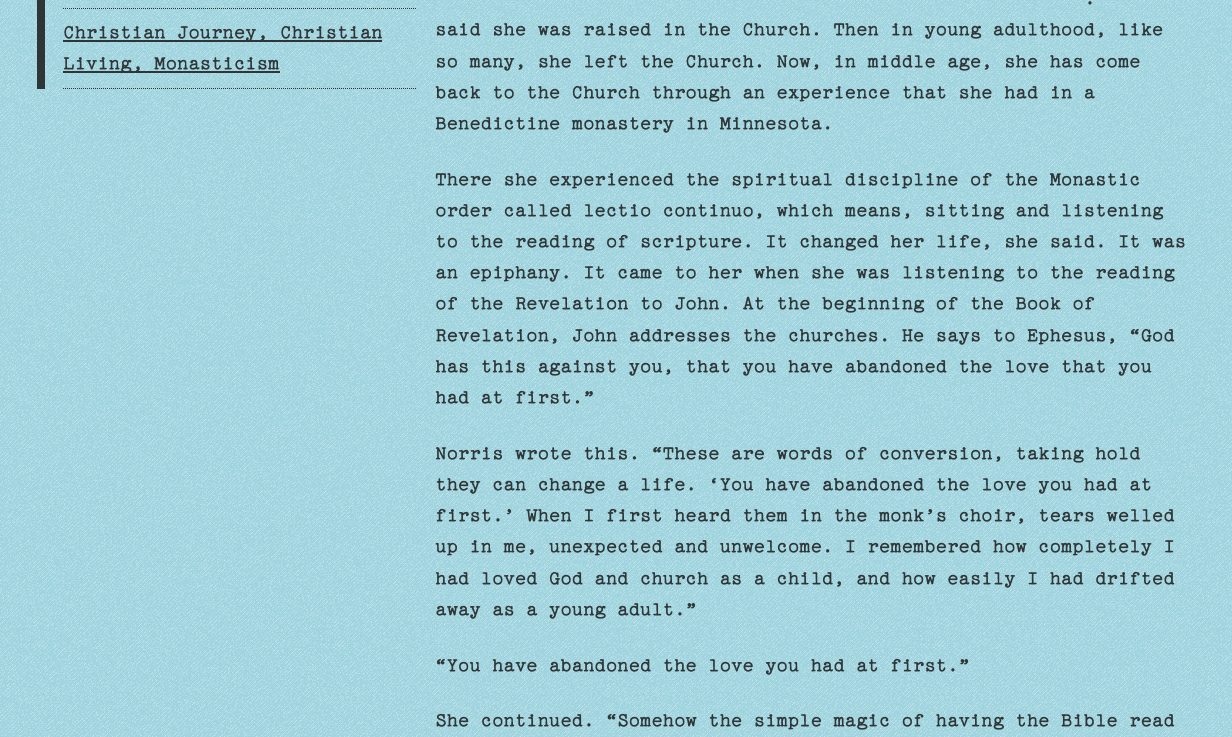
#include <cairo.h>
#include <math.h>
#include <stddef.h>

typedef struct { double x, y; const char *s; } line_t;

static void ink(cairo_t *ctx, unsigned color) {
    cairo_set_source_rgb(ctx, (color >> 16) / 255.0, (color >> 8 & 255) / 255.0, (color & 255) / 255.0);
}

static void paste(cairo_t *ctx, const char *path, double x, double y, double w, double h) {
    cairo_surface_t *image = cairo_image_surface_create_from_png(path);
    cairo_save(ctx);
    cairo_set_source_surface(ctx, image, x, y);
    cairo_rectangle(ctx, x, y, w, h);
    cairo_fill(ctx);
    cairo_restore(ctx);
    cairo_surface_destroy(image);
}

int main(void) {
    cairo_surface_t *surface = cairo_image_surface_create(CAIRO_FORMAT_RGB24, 1232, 737);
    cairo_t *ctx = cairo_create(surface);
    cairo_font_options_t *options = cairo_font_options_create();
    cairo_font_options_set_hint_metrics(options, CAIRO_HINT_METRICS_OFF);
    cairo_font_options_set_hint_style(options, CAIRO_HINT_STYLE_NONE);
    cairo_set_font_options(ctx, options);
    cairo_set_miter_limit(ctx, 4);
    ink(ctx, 0x9FD4DF);
    cairo_paint(ctx);
    paste(ctx, "media/1.png", 0, 0, 1232, 737);
    cairo_set_source_rgba(ctx, 0.098, 0.098, 0.102, 0.85);
    cairo_rectangle(ctx, 37, 0, 8, 89);
    cairo_fill(ctx);
    cairo_new_path(ctx);
    cairo_move_to(ctx, 63, 8.5);
    cairo_line_to(ctx, 417, 8.5);
    cairo_set_line_width(ctx, 1);
    cairo_set_dash(ctx, (double[]){1, 1}, 2, 0);
    cairo_stroke(ctx);
    cairo_new_path(ctx);
    cairo_move_to(ctx, 63, 88.5);
    cairo_line_to(ctx, 417, 88.5);
    cairo_stroke(ctx);
    cairo_rectangle(ctx, 63, 40, 194, 2);
    cairo_fill(ctx);
    cairo_select_font_face(ctx, "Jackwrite", CAIRO_FONT_SLANT_NORMAL, CAIRO_FONT_WEIGHT_NORMAL);
    cairo_set_font_size(ctx, 20.8);
    ink(ctx, 0x2E3638);
    cairo_move_to(ctx, 63, 38);
    cairo_show_text(ctx, "Christian Journey");
    cairo_set_source_rgba(ctx, 0.098, 0.098, 0.102, 0.85);
    cairo_rectangle(ctx, 257, 40, 23, 2);
    cairo_fill(ctx);
    ink(ctx, 0x2E3638);
    cairo_move_to(ctx, 257, 38);
    cairo_show_text(ctx, ",");
    cairo_move_to(ctx, 280, 38);
    cairo_show_text(ctx, "Christian");
    cairo_set_source_rgba(ctx, 0.098, 0.098, 0.102, 0.85);
    cairo_rectangle(ctx, 280, 40, 102, 2);
    cairo_fill(ctx);
    cairo_rectangle(ctx, 63, 71, 69, 2);
    cairo_fill(ctx);
    ink(ctx, 0x2E3638);
    cairo_move_to(ctx, 63, 69);
    cairo_show_text(ctx, "Living");
    cairo_set_source_rgba(ctx, 0.098, 0.098, 0.102, 0.85);
    cairo_rectangle(ctx, 132, 71, 22, 2);
    cairo_fill(ctx);
    ink(ctx, 0x2E3638);
    cairo_move_to(ctx, 132, 69);
    cairo_show_text(ctx, ",");
    cairo_move_to(ctx, 154, 69);
    cairo_show_text(ctx, "Monasticism");
    cairo_set_source_rgba(ctx, 0.098, 0.098, 0.102, 0.85);
    cairo_rectangle(ctx, 154, 71, 126, 2);
    cairo_fill(ctx);
    ink(ctx, 0x2E3638);
    {
        static const line_t items[] = {
            {1084, 4, "."},
            {435, 35, "said she was raised in the Church. Then in young adulthood, like"},
            {435, 67, "so many, she left the Church. Now, in middle age, she has come"},
            {435, 98, "back to the Church through an experience that she had in a"},
            {435, 129, "Benedictine monastery in Minnesota."},
            {435, 185, "There she experienced the spiritual discipline of the Monastic"},
            {435, 216, "order called lectio continuo, which means, sitting and listening"},
            {435, 247, "to the reading of scripture. It changed her life, she said. It was"},
            {435, 278, "an epiphany. It came to her when she was listening to the reading"},
            {435, 309, "of the Revelation to John. At the beginning of the Book of"},
            {435, 341, "Revelation, John addresses the churches. He says to Ephesus, “God"},
            {435, 372, "has this against you, that you have abandoned the love that you"},
            {435, 403, "had at first.”"},
            {435, 459, "Norris wrote this. “These are words of conversion, taking hold"},
            {435, 490, "they can change a life. ‘You have abandoned the love you had at"},
            {435, 521, "first.’ When I first heard them in the monk’s choir, tears welled"},
            {435, 552, "up in me, unexpected and unwelcome. I remembered how completely I"},
            {435, 584, "had loved God and church as a child, and how easily I had drifted"},
            {435, 615, "away as a young adult.”"},
            {435, 671, "“You have abandoned the love you had at first.”"},
            {435, 726, "She continued. “Somehow the simple magic of having the Bible read"},
        };
        for (size_t i = 0; i < sizeof items / sizeof *items; i++) {
            cairo_move_to(ctx, items[i].x, items[i].y);
            cairo_show_text(ctx, items[i].s);
        }
    }
    cairo_surface_write_to_png(surface, "image.png");
    cairo_font_options_destroy(options);
    cairo_destroy(ctx);
    cairo_surface_destroy(surface);
    return 0;
}
